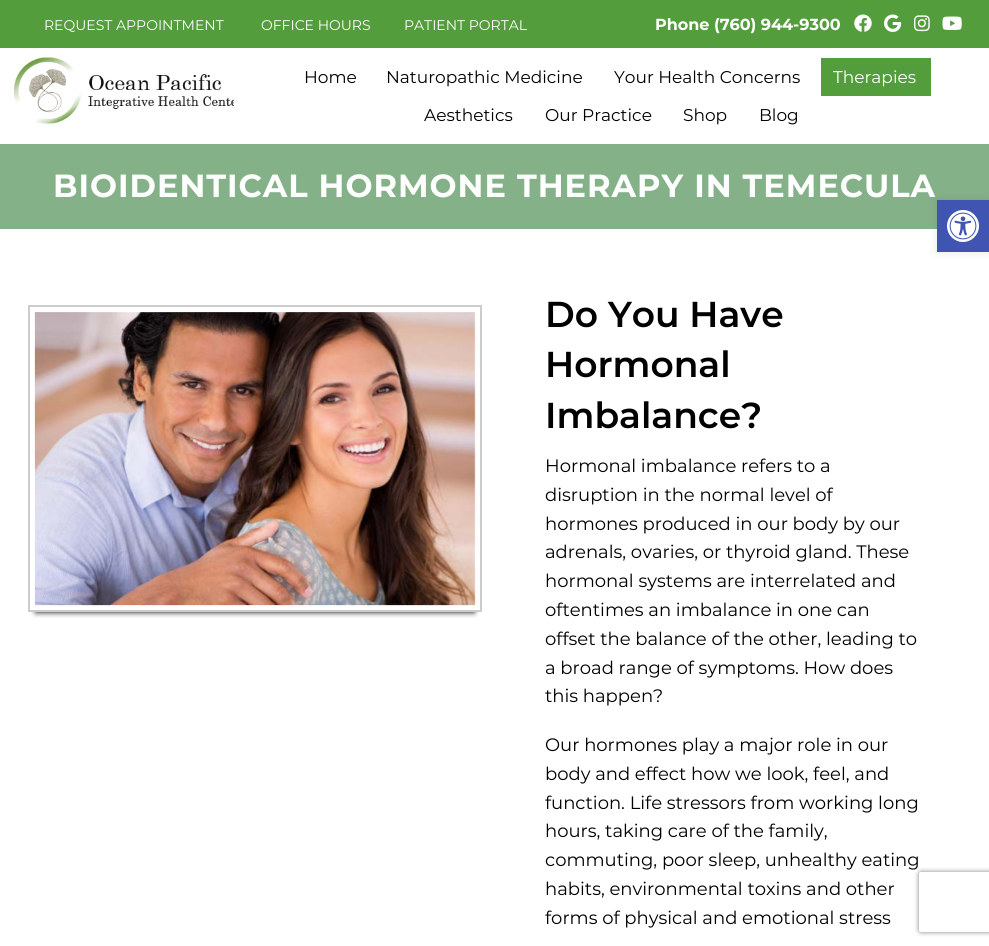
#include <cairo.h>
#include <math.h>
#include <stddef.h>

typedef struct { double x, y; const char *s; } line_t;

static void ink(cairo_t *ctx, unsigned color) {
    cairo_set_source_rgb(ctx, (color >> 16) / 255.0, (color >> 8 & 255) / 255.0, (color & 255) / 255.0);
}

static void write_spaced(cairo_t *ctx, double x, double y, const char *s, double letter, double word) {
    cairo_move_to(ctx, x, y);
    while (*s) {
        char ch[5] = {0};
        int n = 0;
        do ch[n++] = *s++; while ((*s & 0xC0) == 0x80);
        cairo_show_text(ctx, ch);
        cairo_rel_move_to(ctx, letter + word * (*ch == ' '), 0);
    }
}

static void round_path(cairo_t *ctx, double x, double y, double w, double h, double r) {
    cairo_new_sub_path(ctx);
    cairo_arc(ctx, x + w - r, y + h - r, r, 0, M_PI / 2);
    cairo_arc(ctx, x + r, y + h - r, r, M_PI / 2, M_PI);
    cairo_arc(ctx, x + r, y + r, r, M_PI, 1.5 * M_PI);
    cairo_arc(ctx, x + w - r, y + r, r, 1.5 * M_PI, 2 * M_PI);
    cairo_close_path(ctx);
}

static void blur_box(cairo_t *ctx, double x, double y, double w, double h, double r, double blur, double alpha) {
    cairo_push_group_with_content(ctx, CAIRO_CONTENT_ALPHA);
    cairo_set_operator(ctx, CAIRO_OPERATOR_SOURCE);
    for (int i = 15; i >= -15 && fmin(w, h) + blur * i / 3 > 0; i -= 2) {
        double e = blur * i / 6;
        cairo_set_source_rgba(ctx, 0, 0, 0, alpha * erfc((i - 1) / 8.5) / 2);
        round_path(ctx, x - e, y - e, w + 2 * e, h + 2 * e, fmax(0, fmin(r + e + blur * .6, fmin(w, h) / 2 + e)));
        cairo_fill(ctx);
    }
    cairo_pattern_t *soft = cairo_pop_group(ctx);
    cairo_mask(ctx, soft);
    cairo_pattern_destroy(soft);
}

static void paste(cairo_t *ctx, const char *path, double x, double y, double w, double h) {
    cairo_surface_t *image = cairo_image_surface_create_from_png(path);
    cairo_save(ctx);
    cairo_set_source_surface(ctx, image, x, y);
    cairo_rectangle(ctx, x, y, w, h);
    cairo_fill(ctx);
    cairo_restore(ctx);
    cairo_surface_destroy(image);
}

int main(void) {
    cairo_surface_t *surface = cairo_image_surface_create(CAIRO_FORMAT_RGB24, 989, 946);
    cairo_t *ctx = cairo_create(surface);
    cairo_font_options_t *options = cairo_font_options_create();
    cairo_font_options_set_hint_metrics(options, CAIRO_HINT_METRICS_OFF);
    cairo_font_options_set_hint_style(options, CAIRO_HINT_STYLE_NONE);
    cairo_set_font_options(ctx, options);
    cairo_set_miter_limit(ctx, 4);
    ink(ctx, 0xFFFFFF);
    cairo_paint(ctx);
    ink(ctx, 0x549D3D);
    cairo_rectangle(ctx, 0, 0, 989, 48);
    cairo_fill(ctx);
    cairo_select_font_face(ctx, "Montserrat", CAIRO_FONT_SLANT_NORMAL, CAIRO_FONT_WEIGHT_NORMAL);
    cairo_set_font_size(ctx, 14);
    ink(ctx, 0xFFFFFF);
    {
        static const line_t items[] = {
            {44, 30, "REQUEST APPOINTMENT"},
            {261, 30, "OFFICE HOURS"},
            {404, 30, "PATIENT PORTAL"},
        };
        for (size_t i = 0; i < sizeof items / sizeof *items; i++) {
            cairo_move_to(ctx, items[i].x, items[i].y);
            cairo_show_text(ctx, items[i].s);
        }
    }
    cairo_select_font_face(ctx, "Montserrat", CAIRO_FONT_SLANT_NORMAL, CAIRO_FONT_WEIGHT_BOLD);
    cairo_set_font_size(ctx, 16);
    cairo_move_to(ctx, 655, 30);
    cairo_show_text(ctx, "Phone (760) 944-9300");
    paste(ctx, "media/1.png", 854, 14, 18, 18);
    paste(ctx, "media/2.png", 884, 14, 18, 18);
    paste(ctx, "media/3.png", 914, 15, 16, 17);
    paste(ctx, "media/4.png", 942, 16, 20, 14);
    paste(ctx, "media/5.png", 14, 57, 220, 67);
    cairo_select_font_face(ctx, "Montserrat", CAIRO_FONT_SLANT_NORMAL, CAIRO_FONT_WEIGHT_NORMAL);
    cairo_set_font_size(ctx, 17);
    ink(ctx, 0x000000);
    {
        static const line_t items[] = {
            {304, 83, "Home"},
            {386, 83, "Naturopathic Medicine"},
            {614, 83, "Your Health Concerns"},
        };
        for (size_t i = 0; i < sizeof items / sizeof *items; i++) {
            cairo_move_to(ctx, items[i].x, items[i].y);
            cairo_show_text(ctx, items[i].s);
        }
    }
    ink(ctx, 0x549D3D);
    cairo_rectangle(ctx, 821, 58, 110, 38);
    cairo_fill(ctx);
    ink(ctx, 0xFFFFFF);
    cairo_move_to(ctx, 833, 83);
    cairo_show_text(ctx, "Therapies");
    ink(ctx, 0x000000);
    {
        static const line_t items[] = {
            {424, 121, "Aesthetics"},
            {545, 121, "Our Practice"},
            {683, 121, "Shop"},
            {759, 121, "Blog"},
        };
        for (size_t i = 0; i < sizeof items / sizeof *items; i++) {
            cairo_move_to(ctx, items[i].x, items[i].y);
            cairo_show_text(ctx, items[i].s);
        }
    }
    ink(ctx, 0x85B189);
    cairo_rectangle(ctx, 0, 144, 989, 85);
    cairo_fill(ctx);
    cairo_select_font_face(ctx, "Montserrat", CAIRO_FONT_SLANT_NORMAL, CAIRO_FONT_WEIGHT_BOLD);
    cairo_set_font_size(ctx, 32);
    ink(ctx, 0xFFFFFF);
    write_spaced(ctx, 53, 197, "BIOIDENTICAL HORMONE THERAPY IN TEMECULA", 1, 0);
    cairo_save(ctx);
    cairo_rectangle(ctx, 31, 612, 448, 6);
    cairo_clip(ctx);
    ink(ctx, 0x000000);
    blur_box(ctx, 36, 321, 438, 291, 0, 3, 1);
    cairo_restore(ctx);
    paste(ctx, "media/6.png", 34, 312, 442, 294);
    cairo_rectangle(ctx, 29, 306, 452, 305);
    ink(ctx, 0xCCCCCC);
    cairo_stroke(ctx);
    cairo_select_font_face(ctx, "Montserrat SemiBold", CAIRO_FONT_SLANT_NORMAL, CAIRO_FONT_WEIGHT_NORMAL);
    cairo_set_font_size(ctx, 36);
    ink(ctx, 0x000000);
    {
        static const line_t items[] = {
            {545, 327, "Do You Have"},
            {545, 377, "Hormonal"},
            {545, 428, "Imbalance?"},
        };
        for (size_t i = 0; i < sizeof items / sizeof *items; i++) {
            cairo_move_to(ctx, items[i].x, items[i].y);
            cairo_show_text(ctx, items[i].s);
        }
    }
    cairo_select_font_face(ctx, "Montserrat", CAIRO_FONT_SLANT_NORMAL, CAIRO_FONT_WEIGHT_NORMAL);
    cairo_set_font_size(ctx, 18);
    {
        static const line_t items[] = {
            {545, 472, "Hormonal imbalance refers to a"},
            {545, 501, "disruption in the normal level of"},
            {545, 530, "hormones produced in our body by our"},
            {545, 558, "adrenals, ovaries, or thyroid gland. These"},
            {545, 587, "hormonal systems are interrelated and"},
            {545, 616, "oftentimes an imbalance in one can"},
            {545, 645, "offset the balance of the other, leading to"},
            {545, 674, "a broad range of symptoms. How does"},
            {545, 702, "this happen?"},
            {545, 751, "Our hormones play a major role in our"},
            {545, 780, "body and effect how we look, feel, and"},
            {545, 809, "function. Life stressors from working long"},
            {545, 837, "hours, taking care of the family,"},
            {545, 866, "commuting, poor sleep, unhealthy eating"},
            {545, 895, "habits, environmental toxins and other"},
            {545, 924, "forms of physical and emotional stress"},
        };
        for (size_t i = 0; i < sizeof items / sizeof *items; i++) {
            cairo_move_to(ctx, items[i].x, items[i].y);
            cairo_show_text(ctx, items[i].s);
        }
    }
    ink(ctx, 0x000000);
    blur_box(ctx, 937, 200, 52, 52, 0, 5, 0.1);
    ink(ctx, 0x4054B2);
    cairo_rectangle(ctx, 937, 200, 52, 52);
    cairo_fill(ctx);
    paste(ctx, "media/7.png", 947, 210, 32, 32);
    cairo_save(ctx);
    cairo_set_fill_rule(ctx, CAIRO_FILL_RULE_EVEN_ODD);
    cairo_new_path(ctx);
    cairo_move_to(ctx, 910, 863);
    cairo_line_to(ctx, 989, 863);
    cairo_line_to(ctx, 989, 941);
    cairo_line_to(ctx, 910, 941);
    cairo_close_path(ctx);
    cairo_move_to(ctx, 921, 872);
    cairo_line_to(ctx, 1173, 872);
    cairo_curve_to(ctx, 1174, 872, 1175, 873, 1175, 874);
    cairo_line_to(ctx, 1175, 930);
    cairo_curve_to(ctx, 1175, 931, 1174, 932, 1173, 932);
    cairo_line_to(ctx, 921, 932);
    cairo_curve_to(ctx, 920, 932, 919, 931, 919, 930);
    cairo_line_to(ctx, 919, 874);
    cairo_curve_to(ctx, 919, 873, 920, 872, 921, 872);
    cairo_close_path(ctx);
    cairo_clip(ctx);
    ink(ctx, 0x808080);
    blur_box(ctx, 919, 872, 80, 60, 2, 2.5, 1);
    cairo_restore(ctx);
    cairo_surface_write_to_png(surface, "image.png");
    cairo_font_options_destroy(options);
    cairo_destroy(ctx);
    cairo_surface_destroy(surface);
    return 0;
}
